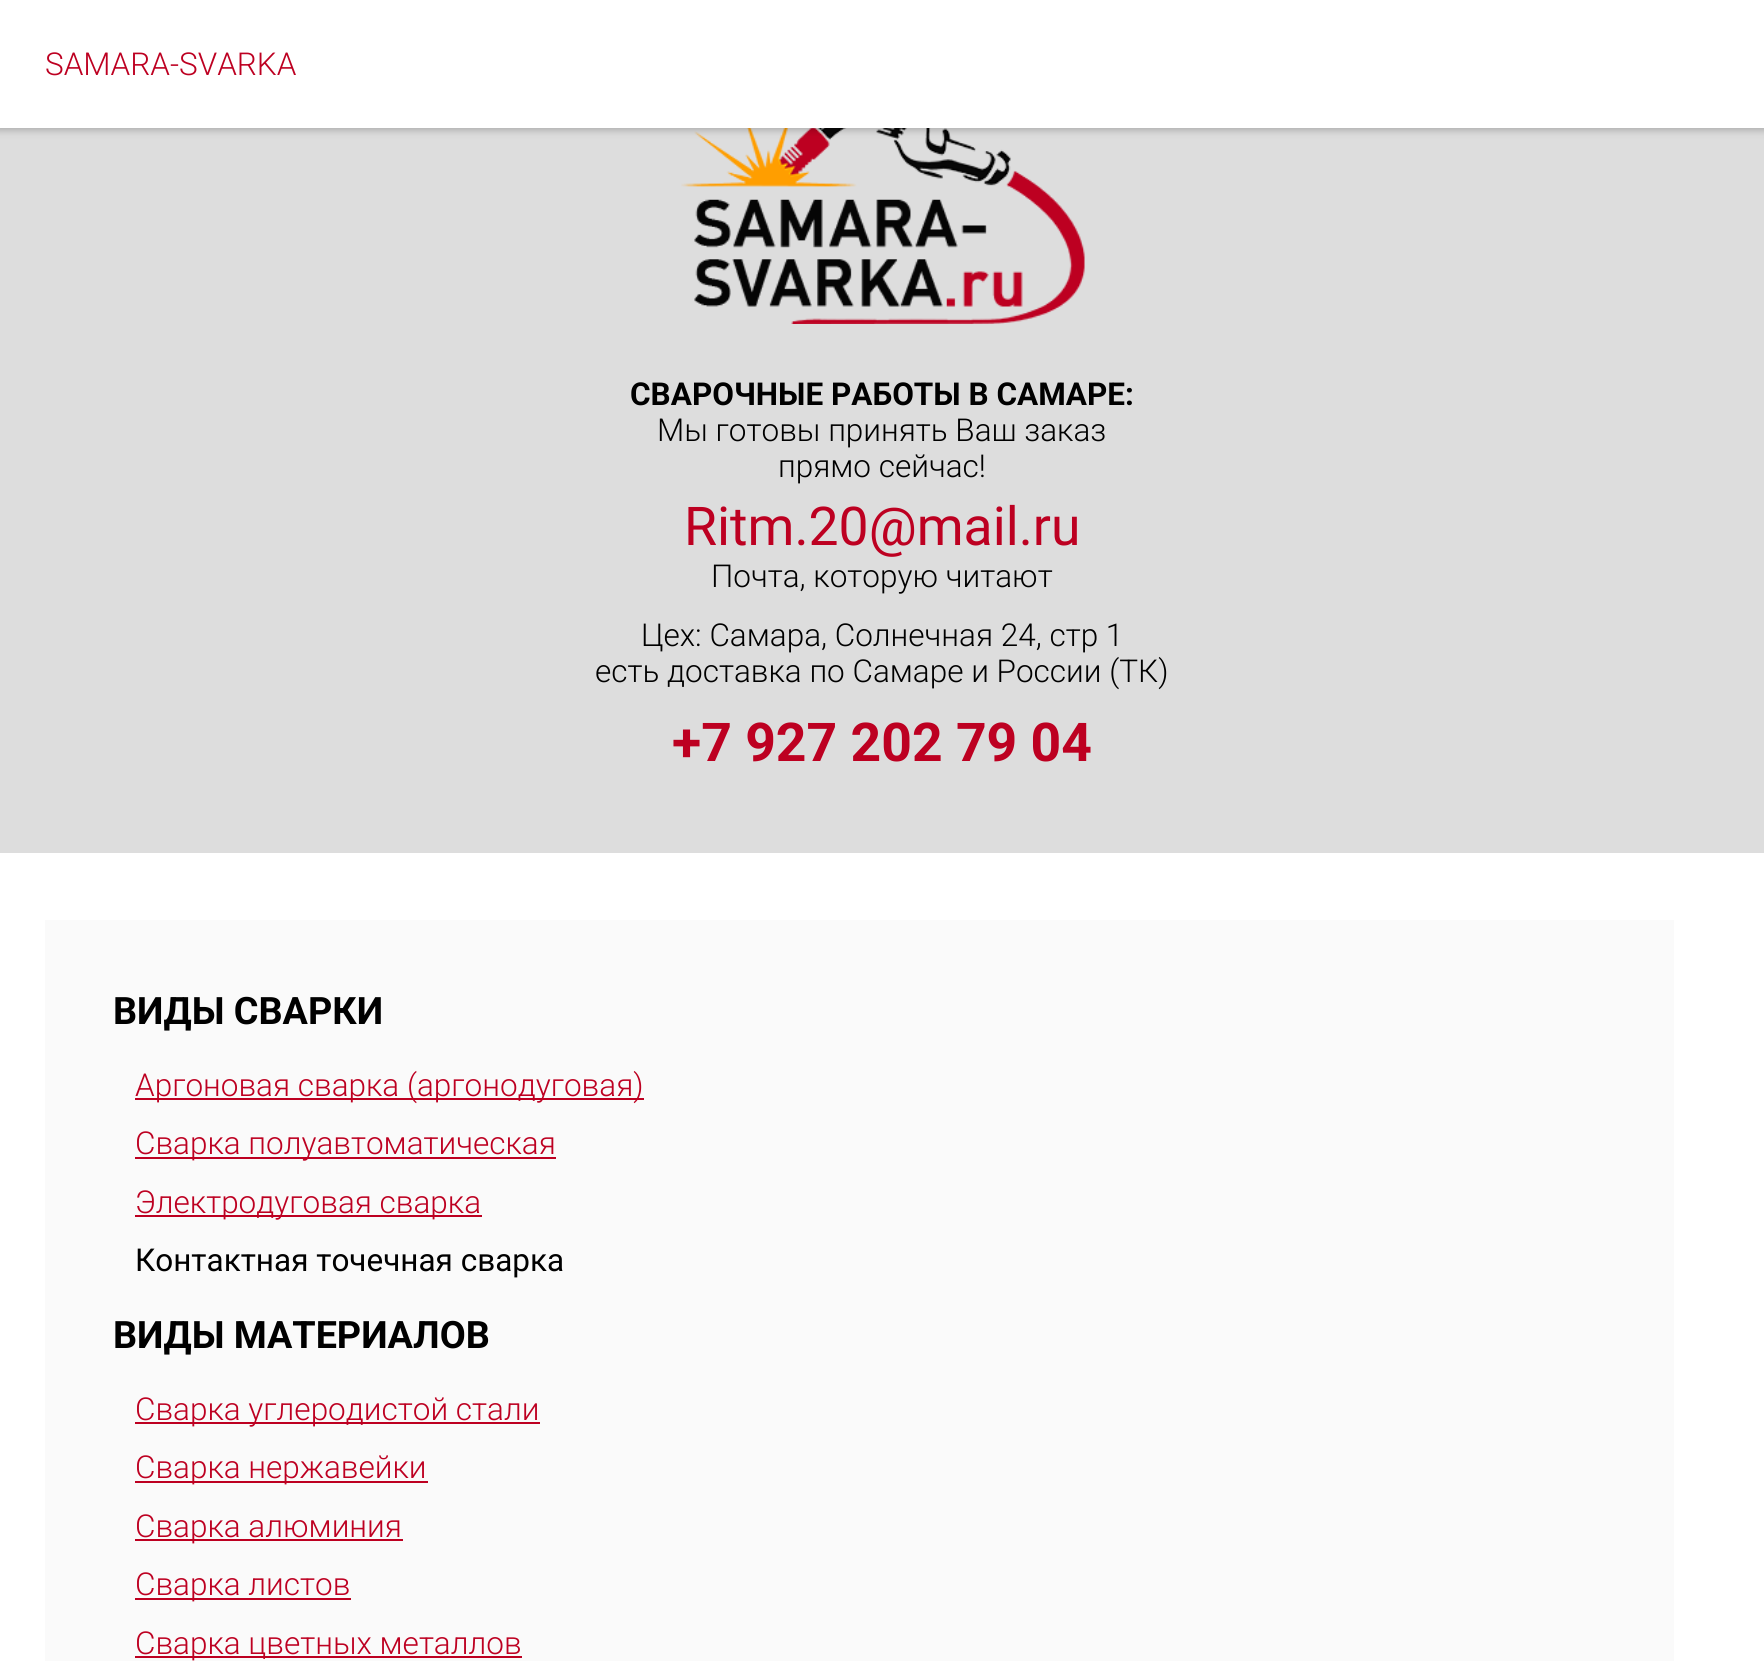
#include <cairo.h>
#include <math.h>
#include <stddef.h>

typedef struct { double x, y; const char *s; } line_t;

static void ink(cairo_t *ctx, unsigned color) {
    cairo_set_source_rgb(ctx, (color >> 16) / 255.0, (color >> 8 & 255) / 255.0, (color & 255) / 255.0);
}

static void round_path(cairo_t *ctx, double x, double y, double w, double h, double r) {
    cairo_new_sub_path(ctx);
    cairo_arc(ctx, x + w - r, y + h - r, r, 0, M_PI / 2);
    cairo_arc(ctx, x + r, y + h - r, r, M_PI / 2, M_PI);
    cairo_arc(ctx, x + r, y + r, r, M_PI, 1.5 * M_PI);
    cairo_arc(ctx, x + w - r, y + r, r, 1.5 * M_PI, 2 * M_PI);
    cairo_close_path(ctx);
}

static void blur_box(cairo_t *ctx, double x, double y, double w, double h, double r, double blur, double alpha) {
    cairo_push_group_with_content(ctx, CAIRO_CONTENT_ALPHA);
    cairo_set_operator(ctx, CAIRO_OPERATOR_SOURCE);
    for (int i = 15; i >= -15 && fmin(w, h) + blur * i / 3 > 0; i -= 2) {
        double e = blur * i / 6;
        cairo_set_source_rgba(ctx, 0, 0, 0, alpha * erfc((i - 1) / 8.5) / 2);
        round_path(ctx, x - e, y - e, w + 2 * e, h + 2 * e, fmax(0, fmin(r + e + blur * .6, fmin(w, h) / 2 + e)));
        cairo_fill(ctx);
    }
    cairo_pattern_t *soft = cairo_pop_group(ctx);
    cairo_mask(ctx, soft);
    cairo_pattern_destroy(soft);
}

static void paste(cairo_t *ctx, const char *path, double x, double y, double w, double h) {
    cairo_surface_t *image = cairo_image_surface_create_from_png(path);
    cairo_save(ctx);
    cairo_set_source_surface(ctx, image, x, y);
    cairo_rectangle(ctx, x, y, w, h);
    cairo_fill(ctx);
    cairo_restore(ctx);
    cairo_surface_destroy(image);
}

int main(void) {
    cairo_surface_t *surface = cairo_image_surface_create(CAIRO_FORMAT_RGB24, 1764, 1661);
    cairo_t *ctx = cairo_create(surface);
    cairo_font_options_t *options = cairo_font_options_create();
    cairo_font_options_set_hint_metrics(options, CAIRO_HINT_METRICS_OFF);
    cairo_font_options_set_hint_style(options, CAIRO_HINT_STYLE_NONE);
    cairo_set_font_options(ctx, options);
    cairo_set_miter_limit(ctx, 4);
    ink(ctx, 0xFFFFFF);
    cairo_paint(ctx);
    ink(ctx, 0xDDDDDD);
    cairo_rectangle(ctx, 0, 128, 1764, 725);
    cairo_fill(ctx);
    paste(ctx, "media/1.png", 681, 128, 404, 196);
    ink(ctx, 0x000000);
    blur_box(ctx, -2, -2, 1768, 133, 0, 3.5, 0.2);
    ink(ctx, 0xFFFFFF);
    cairo_rectangle(ctx, 0, 0, 1764, 128);
    cairo_fill(ctx);
    cairo_select_font_face(ctx, "Roboto Light", CAIRO_FONT_SLANT_NORMAL, CAIRO_FONT_WEIGHT_NORMAL);
    cairo_set_font_size(ctx, 31.5);
    ink(ctx, 0xBD0021);
    cairo_move_to(ctx, 45, 75);
    cairo_show_text(ctx, "SAMARA-SVARKA");
    cairo_select_font_face(ctx, "Roboto", CAIRO_FONT_SLANT_NORMAL, CAIRO_FONT_WEIGHT_BOLD);
    ink(ctx, 0x000000);
    cairo_move_to(ctx, 630, 405);
    cairo_show_text(ctx, "СВАРОЧНЫЕ РАБОТЫ В САМАРЕ:");
    cairo_select_font_face(ctx, "Roboto Light", CAIRO_FONT_SLANT_NORMAL, CAIRO_FONT_WEIGHT_NORMAL);
    cairo_move_to(ctx, 657, 441);
    cairo_show_text(ctx, "Мы готовы принять Ваш заказ");
    cairo_move_to(ctx, 778, 477);
    cairo_show_text(ctx, "прямо сейчас!");
    cairo_select_font_face(ctx, "Roboto", CAIRO_FONT_SLANT_NORMAL, CAIRO_FONT_WEIGHT_NORMAL);
    cairo_set_font_size(ctx, 53.5);
    ink(ctx, 0xBD0021);
    cairo_move_to(ctx, 684, 545);
    cairo_show_text(ctx, "Ritm.20@mail.ru");
    cairo_select_font_face(ctx, "Roboto Light", CAIRO_FONT_SLANT_NORMAL, CAIRO_FONT_WEIGHT_NORMAL);
    cairo_set_font_size(ctx, 31.5);
    ink(ctx, 0x000000);
    {
        static const line_t items[] = {
            {711, 587, "Почта, которую читают"},
            {641, 646, "Цех: Самара, Солнечная 24, стр 1"},
            {595, 682, "есть доставка по Самаре и России (ТК)"},
        };
        for (size_t i = 0; i < sizeof items / sizeof *items; i++) {
            cairo_move_to(ctx, items[i].x, items[i].y);
            cairo_show_text(ctx, items[i].s);
        }
    }
    cairo_select_font_face(ctx, "Roboto", CAIRO_FONT_SLANT_NORMAL, CAIRO_FONT_WEIGHT_BOLD);
    cairo_set_font_size(ctx, 53.5);
    ink(ctx, 0xBD0021);
    cairo_move_to(ctx, 672, 761);
    cairo_show_text(ctx, "+7 927 202 79 04");
    ink(ctx, 0xFAFAFA);
    cairo_rectangle(ctx, 45, 920, 1629, 741);
    cairo_fill(ctx);
    cairo_set_font_size(ctx, 37.75);
    ink(ctx, 0x000000);
    cairo_move_to(ctx, 113, 1024);
    cairo_show_text(ctx, "ВИДЫ СВАРКИ");
    ink(ctx, 0xBD0021);
    cairo_rectangle(ctx, 135, 1098, 509, 2);
    cairo_fill(ctx);
    cairo_select_font_face(ctx, "Roboto Light", CAIRO_FONT_SLANT_NORMAL, CAIRO_FONT_WEIGHT_NORMAL);
    cairo_set_font_size(ctx, 31.5);
    cairo_move_to(ctx, 135, 1096);
    cairo_show_text(ctx, "Аргоновая сварка (аргонодуговая)");
    cairo_rectangle(ctx, 135, 1157, 421, 2);
    cairo_fill(ctx);
    cairo_move_to(ctx, 135, 1154);
    cairo_show_text(ctx, "Сварка полуавтоматическая");
    cairo_rectangle(ctx, 135, 1215, 347, 2);
    cairo_fill(ctx);
    cairo_move_to(ctx, 135, 1213);
    cairo_show_text(ctx, "Электродуговая сварка");
    cairo_select_font_face(ctx, "Roboto", CAIRO_FONT_SLANT_NORMAL, CAIRO_FONT_WEIGHT_NORMAL);
    ink(ctx, 0x000000);
    cairo_move_to(ctx, 135, 1271);
    cairo_show_text(ctx, "Контактная точечная сварка");
    cairo_select_font_face(ctx, "Roboto", CAIRO_FONT_SLANT_NORMAL, CAIRO_FONT_WEIGHT_BOLD);
    cairo_set_font_size(ctx, 37.75);
    cairo_move_to(ctx, 113, 1348);
    cairo_show_text(ctx, "ВИДЫ МАТЕРИАЛОВ");
    ink(ctx, 0xBD0021);
    cairo_rectangle(ctx, 135, 1422, 405, 2);
    cairo_fill(ctx);
    cairo_select_font_face(ctx, "Roboto Light", CAIRO_FONT_SLANT_NORMAL, CAIRO_FONT_WEIGHT_NORMAL);
    cairo_set_font_size(ctx, 31.5);
    cairo_move_to(ctx, 135, 1420);
    cairo_show_text(ctx, "Сварка углеродистой стали");
    cairo_rectangle(ctx, 135, 1481, 293, 2);
    cairo_fill(ctx);
    cairo_move_to(ctx, 135, 1478);
    cairo_show_text(ctx, "Сварка нержавейки");
    cairo_rectangle(ctx, 135, 1539, 268, 2);
    cairo_fill(ctx);
    cairo_move_to(ctx, 135, 1537);
    cairo_show_text(ctx, "Сварка алюминия");
    cairo_rectangle(ctx, 135, 1598, 216, 2);
    cairo_fill(ctx);
    cairo_move_to(ctx, 135, 1595);
    cairo_show_text(ctx, "Сварка листов");
    cairo_rectangle(ctx, 135, 1656, 387, 2);
    cairo_fill(ctx);
    cairo_move_to(ctx, 135, 1654);
    cairo_show_text(ctx, "Сварка цветных металлов");
    cairo_surface_write_to_png(surface, "image.png");
    cairo_font_options_destroy(options);
    cairo_destroy(ctx);
    cairo_surface_destroy(surface);
    return 0;
}
